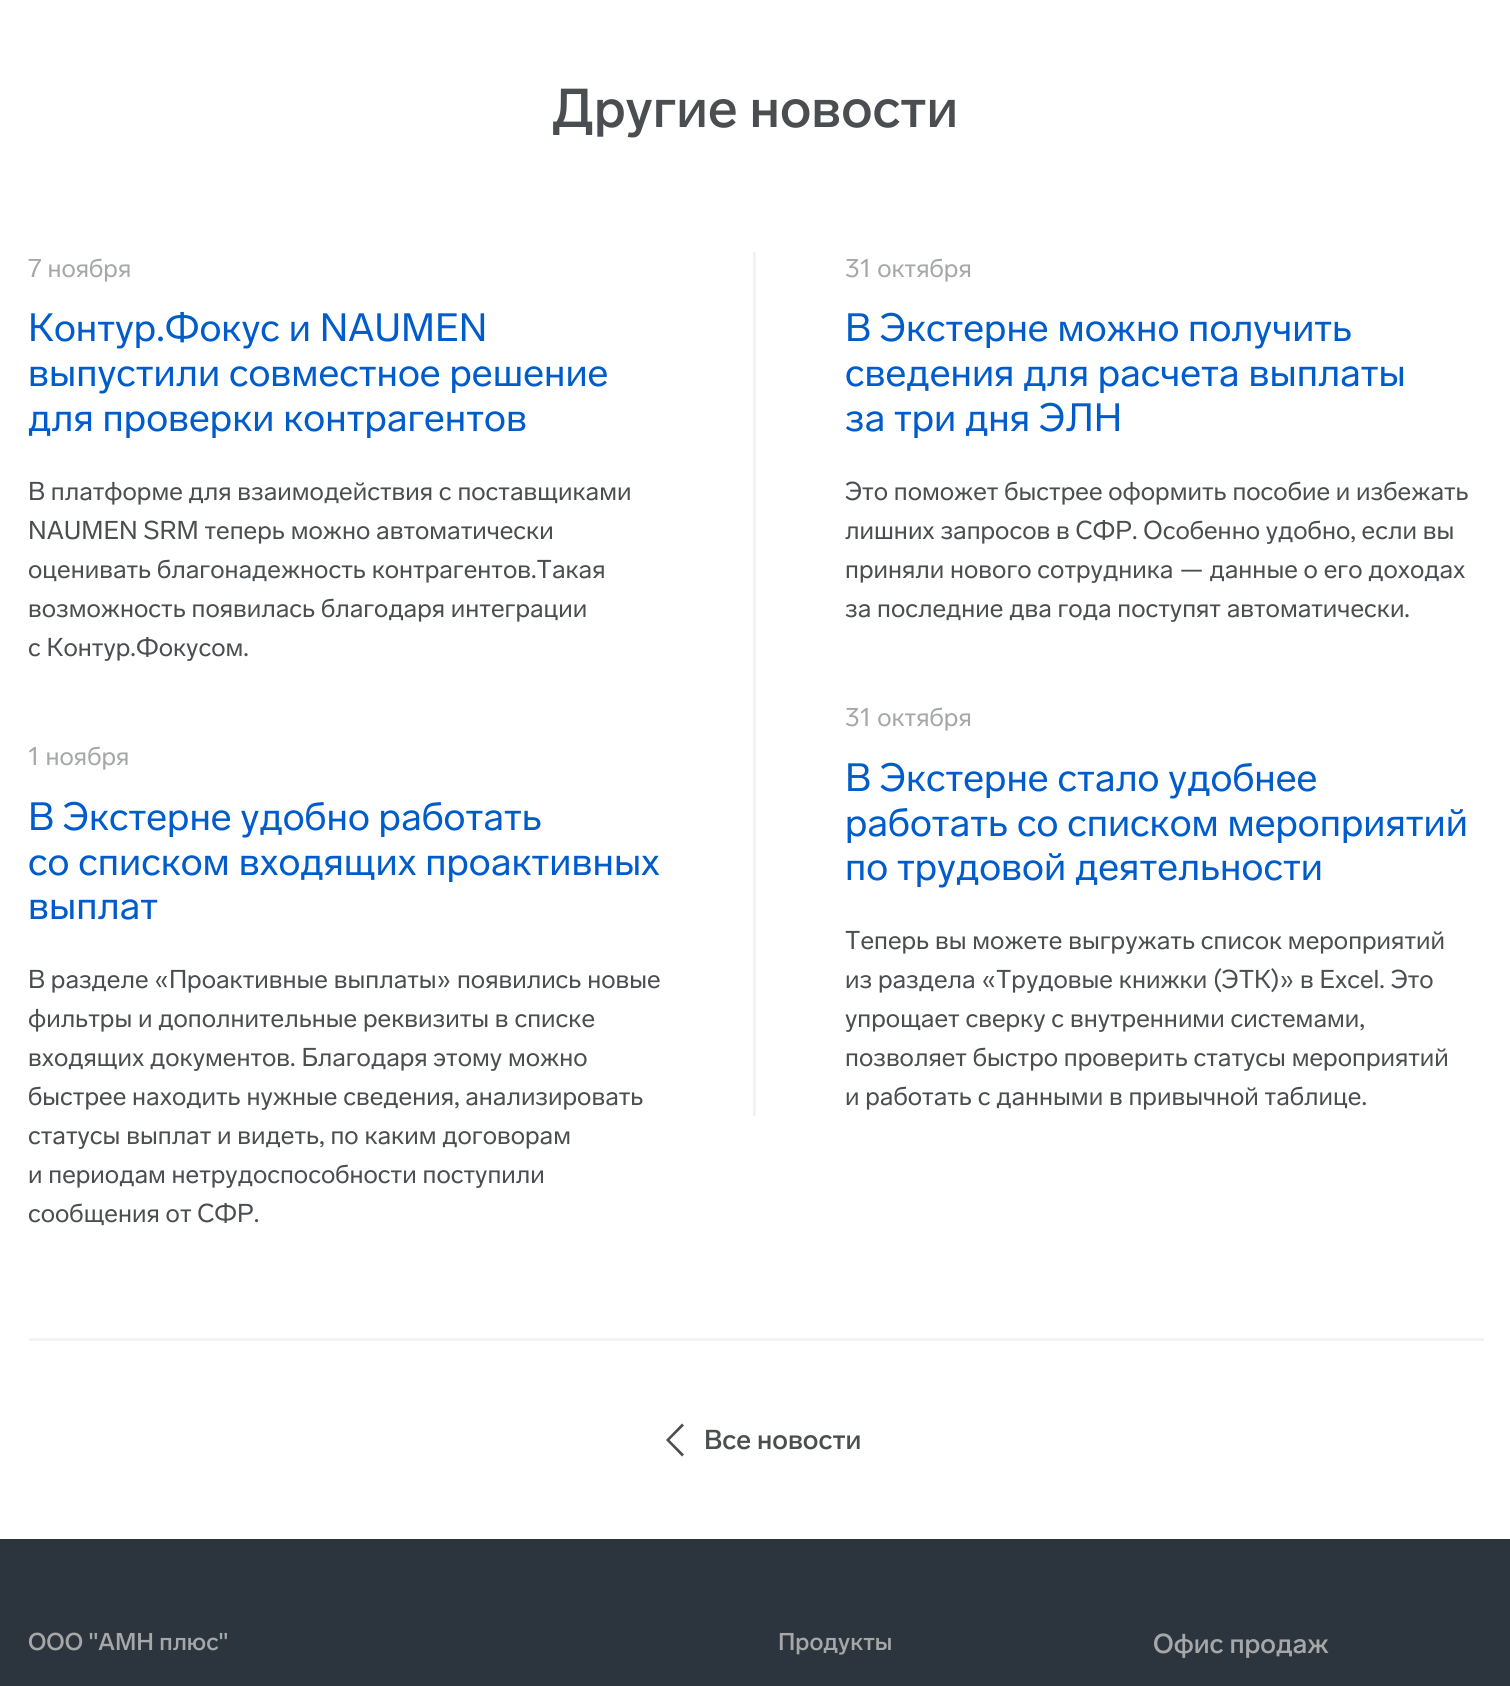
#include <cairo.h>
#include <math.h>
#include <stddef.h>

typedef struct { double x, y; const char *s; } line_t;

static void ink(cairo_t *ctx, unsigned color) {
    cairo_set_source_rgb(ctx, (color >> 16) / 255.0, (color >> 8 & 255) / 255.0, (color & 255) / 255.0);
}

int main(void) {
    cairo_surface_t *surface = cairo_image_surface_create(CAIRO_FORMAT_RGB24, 1510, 1686);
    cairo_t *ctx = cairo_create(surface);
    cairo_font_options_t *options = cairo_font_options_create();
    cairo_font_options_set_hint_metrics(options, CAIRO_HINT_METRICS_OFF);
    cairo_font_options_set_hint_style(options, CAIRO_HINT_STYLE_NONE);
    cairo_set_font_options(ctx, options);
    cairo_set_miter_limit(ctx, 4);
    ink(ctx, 0xFFFFFF);
    cairo_paint(ctx);
    cairo_select_font_face(ctx, "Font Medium", CAIRO_FONT_SLANT_NORMAL, CAIRO_FONT_WEIGHT_NORMAL);
    cairo_set_font_size(ctx, 54);
    ink(ctx, 0x4B4E51);
    cairo_move_to(ctx, 552, 127);
    cairo_show_text(ctx, "Другие новости");
    cairo_select_font_face(ctx, "Font", CAIRO_FONT_SLANT_NORMAL, CAIRO_FONT_WEIGHT_NORMAL);
    cairo_set_font_size(ctx, 25.5);
    ink(ctx, 0xA5A7A8);
    cairo_move_to(ctx, 28, 277);
    cairo_show_text(ctx, "7 ноября");
    cairo_set_font_size(ctx, 39);
    ink(ctx, 0x015CCB);
    {
        static const line_t items[] = {
            {28, 341, "Контур.Фокус и NAUMEN"},
            {28, 386, "выпустили совместное решение"},
            {28, 431, "для проверки контрагентов"},
        };
        for (size_t i = 0; i < sizeof items / sizeof *items; i++) {
            cairo_move_to(ctx, items[i].x, items[i].y);
            cairo_show_text(ctx, items[i].s);
        }
    }
    cairo_set_font_size(ctx, 25.5);
    ink(ctx, 0x4B4E51);
    {
        static const line_t items[] = {
            {28, 500, "В платформе для взаимодействия с поставщиками"},
            {28, 539, "NAUMEN SRM теперь можно автоматически"},
            {28, 578, "оценивать благонадежность контрагентов.Такая"},
            {28, 617, "возможность появилась благодаря интеграции"},
            {28, 656, "с Контур.Фокусом."},
        };
        for (size_t i = 0; i < sizeof items / sizeof *items; i++) {
            cairo_move_to(ctx, items[i].x, items[i].y);
            cairo_show_text(ctx, items[i].s);
        }
    }
    ink(ctx, 0xA5A7A8);
    cairo_move_to(ctx, 28, 765);
    cairo_show_text(ctx, "1 ноября");
    cairo_set_font_size(ctx, 39);
    ink(ctx, 0x015CCB);
    {
        static const line_t items[] = {
            {28, 830, "В Экстерне удобно работать"},
            {28, 875, "со списком входящих проактивных"},
            {28, 919, "выплат"},
        };
        for (size_t i = 0; i < sizeof items / sizeof *items; i++) {
            cairo_move_to(ctx, items[i].x, items[i].y);
            cairo_show_text(ctx, items[i].s);
        }
    }
    cairo_set_font_size(ctx, 25.5);
    ink(ctx, 0x4B4E51);
    {
        static const line_t items[] = {
            {28, 988, "В разделе «Проактивные выплаты» появились новые"},
            {28, 1027, "фильтры и дополнительные реквизиты в списке"},
            {28, 1066, "входящих документов. Благодаря этому можно"},
            {28, 1105, "быстрее находить нужные сведения, анализировать"},
            {28, 1144, "статусы выплат и видеть, по каким договорам"},
            {28, 1183, "и периодам нетрудоспособности поступили"},
            {28, 1222, "сообщения от СФР."},
        };
        for (size_t i = 0; i < sizeof items / sizeof *items; i++) {
            cairo_move_to(ctx, items[i].x, items[i].y);
            cairo_show_text(ctx, items[i].s);
        }
    }
    ink(ctx, 0xF2F2F2);
    cairo_rectangle(ctx, 753, 252, 3, 864);
    cairo_fill(ctx);
    ink(ctx, 0xA5A7A8);
    cairo_move_to(ctx, 845, 277);
    cairo_show_text(ctx, "31 октября");
    cairo_set_font_size(ctx, 39);
    ink(ctx, 0x015CCB);
    {
        static const line_t items[] = {
            {845, 341, "В Экстерне можно получить"},
            {845, 386, "сведения для расчета выплаты"},
            {845, 431, "за три дня ЭЛН"},
        };
        for (size_t i = 0; i < sizeof items / sizeof *items; i++) {
            cairo_move_to(ctx, items[i].x, items[i].y);
            cairo_show_text(ctx, items[i].s);
        }
    }
    cairo_set_font_size(ctx, 25.5);
    ink(ctx, 0x4B4E51);
    {
        static const line_t items[] = {
            {845, 500, "Это поможет быстрее оформить пособие и избежать"},
            {845, 539, "лишних запросов в СФР. Особенно удобно, если вы"},
            {845, 578, "приняли нового сотрудника — данные о его доходах"},
            {845, 617, "за последние два года поступят автоматически."},
        };
        for (size_t i = 0; i < sizeof items / sizeof *items; i++) {
            cairo_move_to(ctx, items[i].x, items[i].y);
            cairo_show_text(ctx, items[i].s);
        }
    }
    ink(ctx, 0xA5A7A8);
    cairo_move_to(ctx, 845, 726);
    cairo_show_text(ctx, "31 октября");
    cairo_set_font_size(ctx, 39);
    ink(ctx, 0x015CCB);
    {
        static const line_t items[] = {
            {845, 791, "В Экстерне стало удобнее"},
            {845, 836, "работать со списком мероприятий"},
            {845, 880, "по трудовой деятельности"},
        };
        for (size_t i = 0; i < sizeof items / sizeof *items; i++) {
            cairo_move_to(ctx, items[i].x, items[i].y);
            cairo_show_text(ctx, items[i].s);
        }
    }
    cairo_set_font_size(ctx, 25.5);
    ink(ctx, 0x4B4E51);
    {
        static const line_t items[] = {
            {845, 949, "Теперь вы можете выгружать список мероприятий"},
            {845, 988, "из раздела «Трудовые книжки (ЭТК)» в Excel. Это"},
            {845, 1027, "упрощает сверку с внутренними системами,"},
            {845, 1066, "позволяет быстро проверить статусы мероприятий"},
            {845, 1105, "и работать с данными в привычной таблице."},
        };
        for (size_t i = 0; i < sizeof items / sizeof *items; i++) {
            cairo_move_to(ctx, items[i].x, items[i].y);
            cairo_show_text(ctx, items[i].s);
        }
    }
    ink(ctx, 0xF3F3F3);
    cairo_rectangle(ctx, 29, 1338, 1455, 3);
    cairo_fill(ctx);
    ink(ctx, 0x4B4E51);
    cairo_new_path(ctx);
    cairo_move_to(ctx, 669.5, 1440);
    cairo_line_to(ctx, 684, 1454.5);
    cairo_line_to(ctx, 682, 1456.5);
    cairo_line_to(ctx, 666, 1440);
    cairo_line_to(ctx, 682, 1423.5);
    cairo_line_to(ctx, 684, 1425.5);
    cairo_close_path(ctx);
    cairo_fill(ctx);
    cairo_select_font_face(ctx, "Font Medium", CAIRO_FONT_SLANT_NORMAL, CAIRO_FONT_WEIGHT_NORMAL);
    cairo_set_font_size(ctx, 27);
    cairo_move_to(ctx, 704, 1449);
    cairo_show_text(ctx, "Все новости");
    ink(ctx, 0x2C353D);
    cairo_rectangle(ctx, 0, 1539, 1510, 147);
    cairo_fill(ctx);
    cairo_set_font_size(ctx, 24);
    ink(ctx, 0xA5A7A8);
    cairo_move_to(ctx, 28, 1650);
    cairo_show_text(ctx, "ООО \"АМН плюс\"");
    cairo_move_to(ctx, 778, 1650);
    cairo_show_text(ctx, "Продукты");
    cairo_set_font_size(ctx, 27);
    cairo_move_to(ctx, 1153, 1653);
    cairo_show_text(ctx, "Офис продаж");
    cairo_surface_write_to_png(surface, "image.png");
    cairo_font_options_destroy(options);
    cairo_destroy(ctx);
    cairo_surface_destroy(surface);
    return 0;
}
